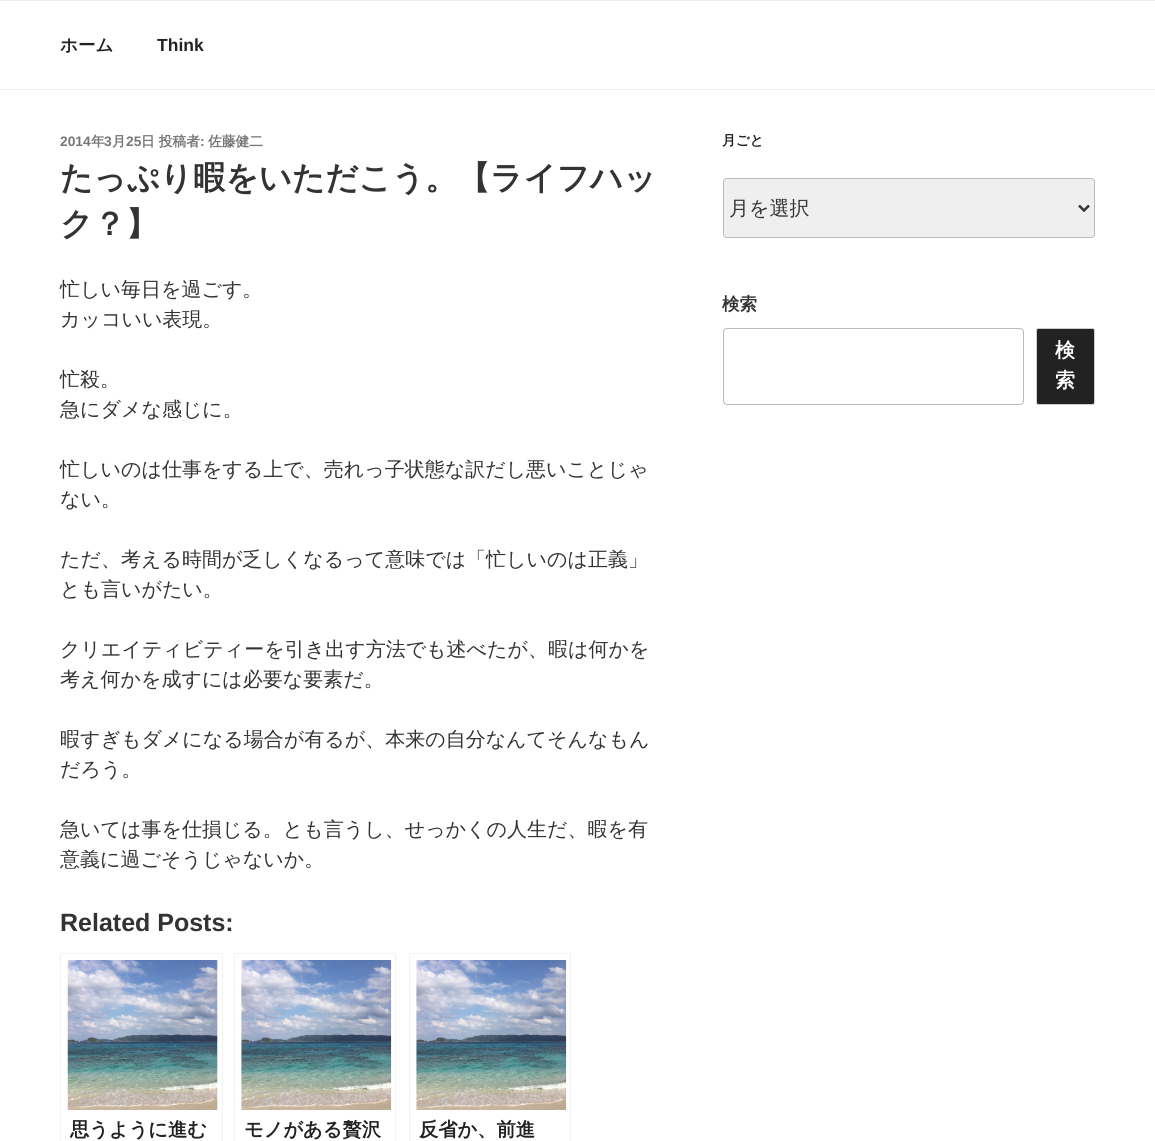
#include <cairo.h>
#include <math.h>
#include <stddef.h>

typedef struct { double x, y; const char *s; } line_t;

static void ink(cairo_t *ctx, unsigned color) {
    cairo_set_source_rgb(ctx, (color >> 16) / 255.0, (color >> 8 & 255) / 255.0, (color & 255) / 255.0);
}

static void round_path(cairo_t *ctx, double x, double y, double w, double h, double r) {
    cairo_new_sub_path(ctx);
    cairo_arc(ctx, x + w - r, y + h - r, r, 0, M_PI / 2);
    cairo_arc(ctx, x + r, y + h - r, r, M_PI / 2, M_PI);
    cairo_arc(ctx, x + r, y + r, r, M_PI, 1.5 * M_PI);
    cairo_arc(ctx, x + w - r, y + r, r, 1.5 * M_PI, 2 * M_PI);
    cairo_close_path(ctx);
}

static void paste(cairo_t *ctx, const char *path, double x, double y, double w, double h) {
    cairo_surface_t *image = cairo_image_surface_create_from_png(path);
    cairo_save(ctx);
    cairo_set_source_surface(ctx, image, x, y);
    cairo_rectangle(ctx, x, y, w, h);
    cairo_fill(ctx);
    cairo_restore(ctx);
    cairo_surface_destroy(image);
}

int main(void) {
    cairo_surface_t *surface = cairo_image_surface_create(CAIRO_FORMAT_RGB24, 1155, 1141);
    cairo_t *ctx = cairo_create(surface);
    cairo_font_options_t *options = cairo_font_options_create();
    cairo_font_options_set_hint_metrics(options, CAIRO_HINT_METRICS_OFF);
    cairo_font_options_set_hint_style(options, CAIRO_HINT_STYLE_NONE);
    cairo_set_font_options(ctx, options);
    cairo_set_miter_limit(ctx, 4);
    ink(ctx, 0xFFFFFF);
    cairo_paint(ctx);
    ink(ctx, 0xEEEEEE);
    cairo_rectangle(ctx, 0, 0, 1155, 1);
    cairo_fill(ctx);
    cairo_rectangle(ctx, 0, 89, 1155, 1);
    cairo_fill(ctx);
    cairo_select_font_face(ctx, "WenQuanYi Zen Hei", CAIRO_FONT_SLANT_NORMAL, CAIRO_FONT_WEIGHT_BOLD);
    cairo_set_font_size(ctx, 17.5);
    ink(ctx, 0x222222);
    cairo_move_to(ctx, 60, 51);
    cairo_show_text(ctx, "ホーム");
    cairo_select_font_face(ctx, "Liberation Sans", CAIRO_FONT_SLANT_NORMAL, CAIRO_FONT_WEIGHT_BOLD);
    cairo_move_to(ctx, 157, 51);
    cairo_show_text(ctx, "Think");
    cairo_set_font_size(ctx, 13.75);
    ink(ctx, 0x767676);
    cairo_move_to(ctx, 60, 146);
    cairo_show_text(ctx, "2014");
    cairo_select_font_face(ctx, "WenQuanYi Zen Hei", CAIRO_FONT_SLANT_NORMAL, CAIRO_FONT_WEIGHT_BOLD);
    cairo_move_to(ctx, 91, 146);
    cairo_show_text(ctx, "年");
    cairo_select_font_face(ctx, "Liberation Sans", CAIRO_FONT_SLANT_NORMAL, CAIRO_FONT_WEIGHT_BOLD);
    cairo_move_to(ctx, 104, 146);
    cairo_show_text(ctx, "3");
    cairo_select_font_face(ctx, "WenQuanYi Zen Hei", CAIRO_FONT_SLANT_NORMAL, CAIRO_FONT_WEIGHT_BOLD);
    cairo_move_to(ctx, 112, 146);
    cairo_show_text(ctx, "月");
    cairo_select_font_face(ctx, "Liberation Sans", CAIRO_FONT_SLANT_NORMAL, CAIRO_FONT_WEIGHT_BOLD);
    cairo_move_to(ctx, 126, 146);
    cairo_show_text(ctx, "25");
    cairo_select_font_face(ctx, "WenQuanYi Zen Hei", CAIRO_FONT_SLANT_NORMAL, CAIRO_FONT_WEIGHT_BOLD);
    cairo_move_to(ctx, 141, 146);
    cairo_show_text(ctx, "日 投稿者");
    cairo_select_font_face(ctx, "Liberation Sans", CAIRO_FONT_SLANT_NORMAL, CAIRO_FONT_WEIGHT_BOLD);
    cairo_move_to(ctx, 200, 146);
    cairo_show_text(ctx, ":");
    cairo_select_font_face(ctx, "WenQuanYi Zen Hei", CAIRO_FONT_SLANT_NORMAL, CAIRO_FONT_WEIGHT_BOLD);
    cairo_move_to(ctx, 208, 146);
    cairo_show_text(ctx, "佐藤健二");
    cairo_set_font_size(ctx, 32.5);
    ink(ctx, 0x333333);
    cairo_move_to(ctx, 60, 189);
    cairo_show_text(ctx, "たっぷり暇をいただこう。【ライフハッ");
    cairo_move_to(ctx, 60, 235);
    cairo_show_text(ctx, "ク？】");
    cairo_select_font_face(ctx, "WenQuanYi Zen Hei Medium", CAIRO_FONT_SLANT_NORMAL, CAIRO_FONT_WEIGHT_NORMAL);
    cairo_set_font_size(ctx, 20);
    {
        static const line_t items[] = {
            {60, 296, "忙しい毎日を過ごす。"},
            {60, 326, "カッコいい表現。"},
            {60, 386, "忙殺。"},
            {60, 416, "急にダメな感じに。"},
            {60, 476, "忙しいのは仕事をする上で、売れっ子状態な訳だし悪いことじゃ"},
            {60, 506, "ない。"},
            {60, 566, "ただ、考える時間が乏しくなるって意味では「忙しいのは正義」"},
            {60, 596, "とも言いがたい。"},
            {60, 656, "クリエイティビティーを引き出す方法でも述べたが、暇は何かを"},
            {60, 686, "考え何かを成すには必要な要素だ。"},
            {60, 746, "暇すぎもダメになる場合が有るが、本来の自分なんてそんなもん"},
            {60, 776, "だろう。"},
            {60, 836, "急いては事を仕損じる。とも言うし、せっかくの人生だ、暇を有"},
            {60, 866, "意義に過ごそうじゃないか。"},
        };
        for (size_t i = 0; i < sizeof items / sizeof *items; i++) {
            cairo_move_to(ctx, items[i].x, items[i].y);
            cairo_show_text(ctx, items[i].s);
        }
    }
    cairo_select_font_face(ctx, "Liberation Sans", CAIRO_FONT_SLANT_NORMAL, CAIRO_FONT_WEIGHT_BOLD);
    cairo_set_font_size(ctx, 25);
    cairo_move_to(ctx, 60, 931);
    cairo_show_text(ctx, "Related Posts:");
    cairo_rectangle(ctx, 60.5, 953.5, 162, 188);
    ink(ctx, 0xF2F2F2);
    cairo_set_line_width(ctx, 1);
    cairo_stroke(ctx);
    paste(ctx, "media/1.png", 67, 960, 151, 150);
    cairo_select_font_face(ctx, "WenQuanYi Zen Hei", CAIRO_FONT_SLANT_NORMAL, CAIRO_FONT_WEIGHT_BOLD);
    cairo_set_font_size(ctx, 19.25);
    ink(ctx, 0x222222);
    cairo_move_to(ctx, 70, 1136);
    cairo_show_text(ctx, "思うように進む");
    cairo_rectangle(ctx, 234.5, 953.5, 161, 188);
    ink(ctx, 0xF2F2F2);
    cairo_stroke(ctx);
    paste(ctx, "media/2.png", 241, 960, 151, 150);
    ink(ctx, 0x222222);
    cairo_move_to(ctx, 244, 1136);
    cairo_show_text(ctx, "モノがある贅沢");
    cairo_rectangle(ctx, 409.5, 953.5, 161, 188);
    ink(ctx, 0xF2F2F2);
    cairo_stroke(ctx);
    paste(ctx, "media/2.png", 416, 960, 151, 150);
    ink(ctx, 0x222222);
    cairo_move_to(ctx, 419, 1136);
    cairo_show_text(ctx, "反省か、前進");
    cairo_set_font_size(ctx, 13.75);
    cairo_move_to(ctx, 722, 145);
    cairo_show_text(ctx, "月ごと");
    ink(ctx, 0xEFEFEF);
    round_path(ctx, 723.5, 178.5, 371, 59, 3.5);
    cairo_fill_preserve(ctx);
    ink(ctx, 0xBBBBBB);
    cairo_stroke(ctx);
    cairo_new_path(ctx);
    cairo_move_to(ctx, 1079, 205.5);
    cairo_line_to(ctx, 1084, 210.5);
    cairo_line_to(ctx, 1089, 205.5);
    ink(ctx, 0x333333);
    cairo_set_line_width(ctx, 2.5);
    cairo_stroke(ctx);
    cairo_select_font_face(ctx, "WenQuanYi Zen Hei Medium", CAIRO_FONT_SLANT_NORMAL, CAIRO_FONT_WEIGHT_NORMAL);
    cairo_set_font_size(ctx, 20);
    cairo_move_to(ctx, 729, 215);
    cairo_show_text(ctx, "月を選択");
    cairo_select_font_face(ctx, "WenQuanYi Zen Hei", CAIRO_FONT_SLANT_NORMAL, CAIRO_FONT_WEIGHT_BOLD);
    cairo_set_font_size(ctx, 17.5);
    cairo_move_to(ctx, 722, 310);
    cairo_show_text(ctx, "検索");
    round_path(ctx, 723.5, 328.5, 300, 76, 3.5);
    ink(ctx, 0xBBBBBB);
    cairo_set_line_width(ctx, 1);
    cairo_stroke(ctx);
    ink(ctx, 0x222222);
    round_path(ctx, 1036.5, 328.5, 58, 76, 2);
    cairo_fill_preserve(ctx);
    ink(ctx, 0xCCCCCC);
    cairo_stroke(ctx);
    cairo_set_font_size(ctx, 20);
    ink(ctx, 0xFFFFFF);
    cairo_move_to(ctx, 1055, 357);
    cairo_show_text(ctx, "検");
    cairo_move_to(ctx, 1055, 387);
    cairo_show_text(ctx, "索");
    cairo_surface_write_to_png(surface, "image.png");
    cairo_font_options_destroy(options);
    cairo_destroy(ctx);
    cairo_surface_destroy(surface);
    return 0;
}
